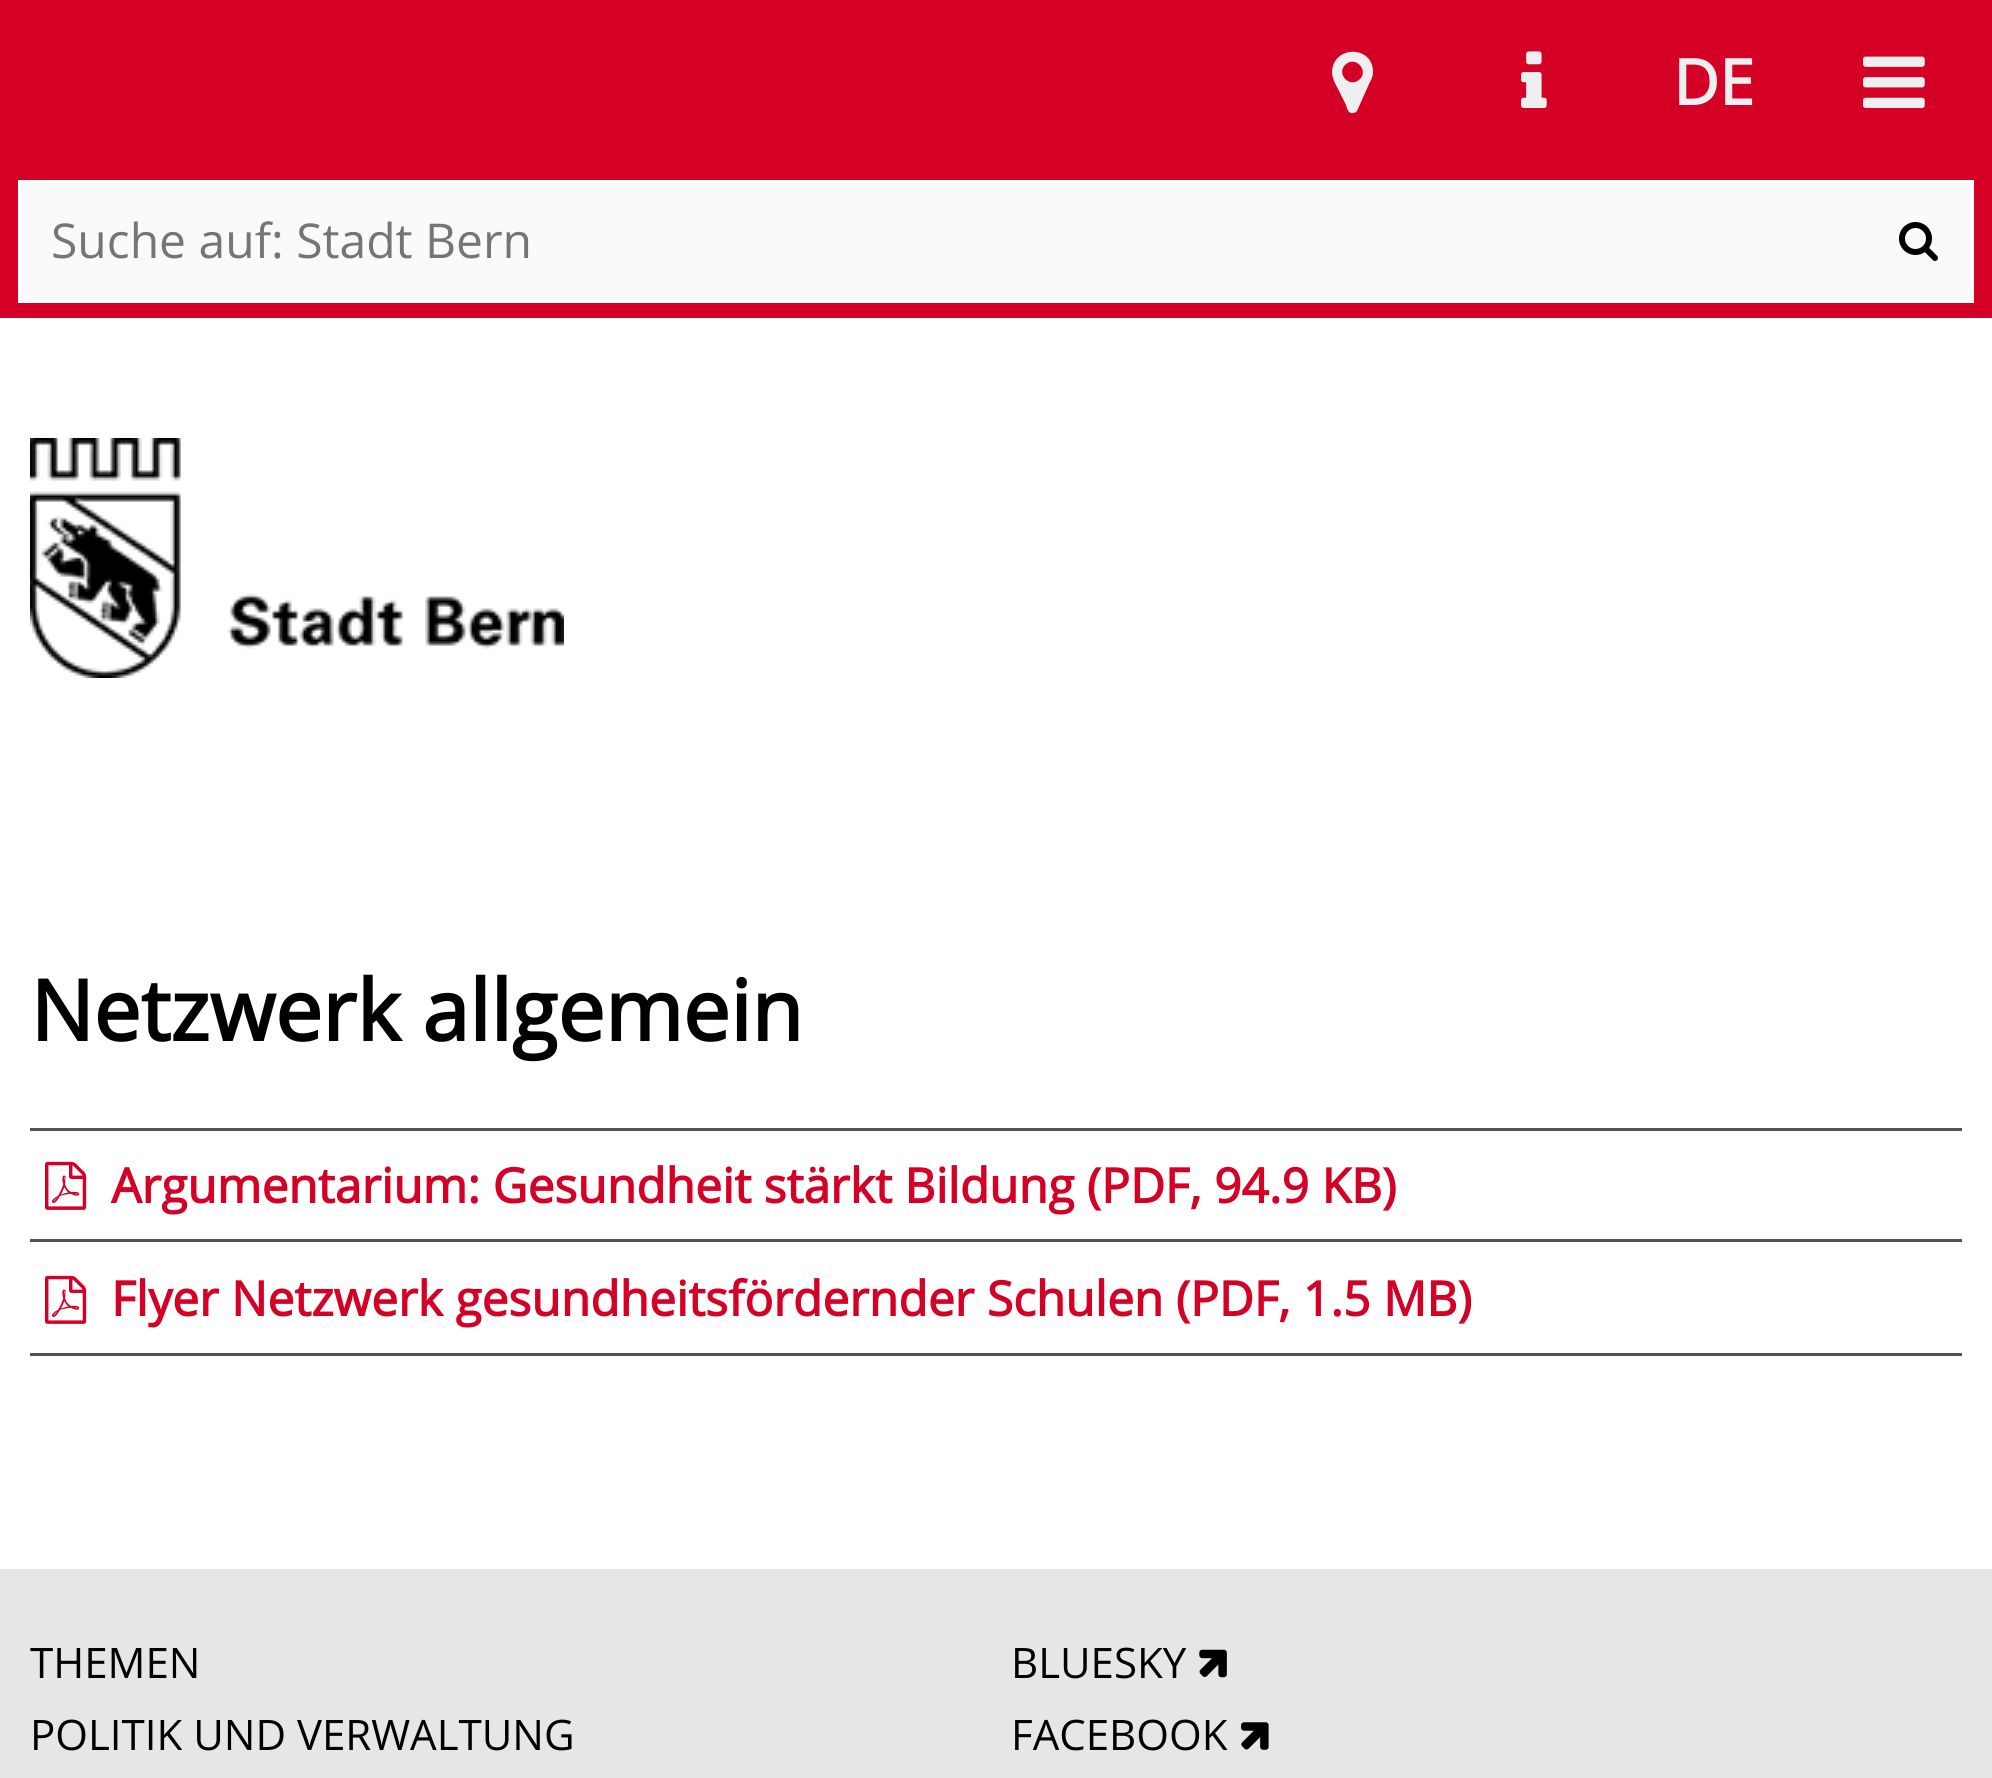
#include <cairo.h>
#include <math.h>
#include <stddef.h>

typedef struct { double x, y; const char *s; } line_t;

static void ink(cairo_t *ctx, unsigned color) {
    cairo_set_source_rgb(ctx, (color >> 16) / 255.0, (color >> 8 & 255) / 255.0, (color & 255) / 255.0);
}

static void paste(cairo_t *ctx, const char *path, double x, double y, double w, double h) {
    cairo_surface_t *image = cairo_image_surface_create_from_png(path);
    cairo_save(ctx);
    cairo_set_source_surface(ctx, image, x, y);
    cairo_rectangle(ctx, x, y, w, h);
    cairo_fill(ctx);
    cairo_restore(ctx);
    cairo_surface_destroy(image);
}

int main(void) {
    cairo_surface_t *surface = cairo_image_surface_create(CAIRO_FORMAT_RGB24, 1992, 1778);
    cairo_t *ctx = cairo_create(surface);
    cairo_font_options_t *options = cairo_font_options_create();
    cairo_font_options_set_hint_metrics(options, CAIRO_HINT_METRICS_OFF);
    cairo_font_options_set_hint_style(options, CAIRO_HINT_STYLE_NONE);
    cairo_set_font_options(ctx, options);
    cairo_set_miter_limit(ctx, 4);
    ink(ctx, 0xFFFFFF);
    cairo_paint(ctx);
    ink(ctx, 0xD50025);
    cairo_rectangle(ctx, 0, 0, 1992, 318);
    cairo_fill(ctx);
    ink(ctx, 0xEFEFEF);
    cairo_new_path(ctx);
    cairo_move_to(ctx, 1360, 79);
    cairo_curve_to(ctx, 1369, 70, 1355, 55, 1345, 65);
    cairo_curve_to(ctx, 1336, 74, 1350, 89, 1360, 79);
    cairo_close_path(ctx);
    cairo_move_to(ctx, 1373, 72);
    cairo_curve_to(ctx, 1373, 77, 1371, 80, 1369, 84);
    cairo_line_to(ctx, 1357, 111);
    cairo_curve_to(ctx, 1356, 112, 1355, 113, 1353, 113);
    cairo_curve_to(ctx, 1348, 114, 1347, 108, 1346, 105);
    cairo_line_to(ctx, 1341, 95);
    cairo_curve_to(ctx, 1338, 88, 1332, 80, 1332, 72);
    cairo_curve_to(ctx, 1333, 45, 1373, 45, 1373, 72);
    cairo_close_path(ctx);
    cairo_fill(ctx);
    paste(ctx, "media/1.png", 1521, 51, 26, 57);
    cairo_select_font_face(ctx, "Open Sans", CAIRO_FONT_SLANT_NORMAL, CAIRO_FONT_WEIGHT_BOLD);
    cairo_set_font_size(ctx, 63);
    cairo_move_to(ctx, 1673, 105);
    cairo_show_text(ctx, "DE");
    paste(ctx, "media/2.png", 1863, 56, 62, 52);
    ink(ctx, 0xFAFAFA);
    cairo_rectangle(ctx, 19.5, 181.5, 1953, 120);
    cairo_fill_preserve(ctx);
    ink(ctx, 0xFFFFFF);
    cairo_set_line_width(ctx, 3);
    cairo_stroke(ctx);
    cairo_select_font_face(ctx, "Open Sans", CAIRO_FONT_SLANT_NORMAL, CAIRO_FONT_WEIGHT_NORMAL);
    cairo_set_font_size(ctx, 48);
    ink(ctx, 0x757575);
    cairo_move_to(ctx, 51, 258);
    cairo_show_text(ctx, "Suche auf: Stadt Bern");
    paste(ctx, "media/3.png", 1899, 222, 39, 39);
    paste(ctx, "media/4.png", 30, 438, 534, 240);
    cairo_select_font_face(ctx, "Open Sans", CAIRO_FONT_SLANT_NORMAL, CAIRO_FONT_WEIGHT_BOLD);
    cairo_set_font_size(ctx, 84);
    ink(ctx, 0x000000);
    cairo_move_to(ctx, 30, 1041);
    cairo_show_text(ctx, "Netzwerk allgemein");
    ink(ctx, 0x535353);
    cairo_rectangle(ctx, 30, 1128, 1932, 3);
    cairo_fill(ctx);
    paste(ctx, "media/5.png", 45, 1161, 42, 49);
    cairo_set_font_size(ctx, 48);
    ink(ctx, 0xD50025);
    cairo_move_to(ctx, 111, 1203);
    cairo_show_text(ctx, "Argumentarium: Gesundheit stärkt Bildung (PDF, 94.9 KB)");
    ink(ctx, 0x535353);
    cairo_rectangle(ctx, 30, 1239, 1932, 3);
    cairo_fill(ctx);
    cairo_rectangle(ctx, 30, 1353, 1932, 3);
    cairo_fill(ctx);
    paste(ctx, "media/5.png", 45, 1275, 42, 49);
    ink(ctx, 0xD50025);
    cairo_move_to(ctx, 111, 1316);
    cairo_show_text(ctx, "Flyer Netzwerk gesundheitsfördernder Schulen (PDF, 1.5 MB)");
    ink(ctx, 0xE6E6E6);
    cairo_rectangle(ctx, 0, 1569, 1992, 209);
    cairo_fill(ctx);
    cairo_select_font_face(ctx, "Open Sans", CAIRO_FONT_SLANT_NORMAL, CAIRO_FONT_WEIGHT_NORMAL);
    cairo_set_font_size(ctx, 42);
    ink(ctx, 0x000000);
    {
        static const line_t items[] = {
            {30, 1678, "THEMEN"},
            {30, 1750, "POLITIK UND VERWALTUNG"},
            {1011, 1678, "BLUESKY"},
        };
        for (size_t i = 0; i < sizeof items / sizeof *items; i++) {
            cairo_move_to(ctx, items[i].x, items[i].y);
            cairo_show_text(ctx, items[i].s);
        }
    }
    paste(ctx, "media/6.png", 1199, 1649, 28, 29);
    cairo_move_to(ctx, 1011, 1750);
    cairo_show_text(ctx, "FACEBOOK");
    paste(ctx, "media/7.png", 1241, 1722, 28, 28);
    cairo_surface_write_to_png(surface, "image.png");
    cairo_font_options_destroy(options);
    cairo_destroy(ctx);
    cairo_surface_destroy(surface);
    return 0;
}
